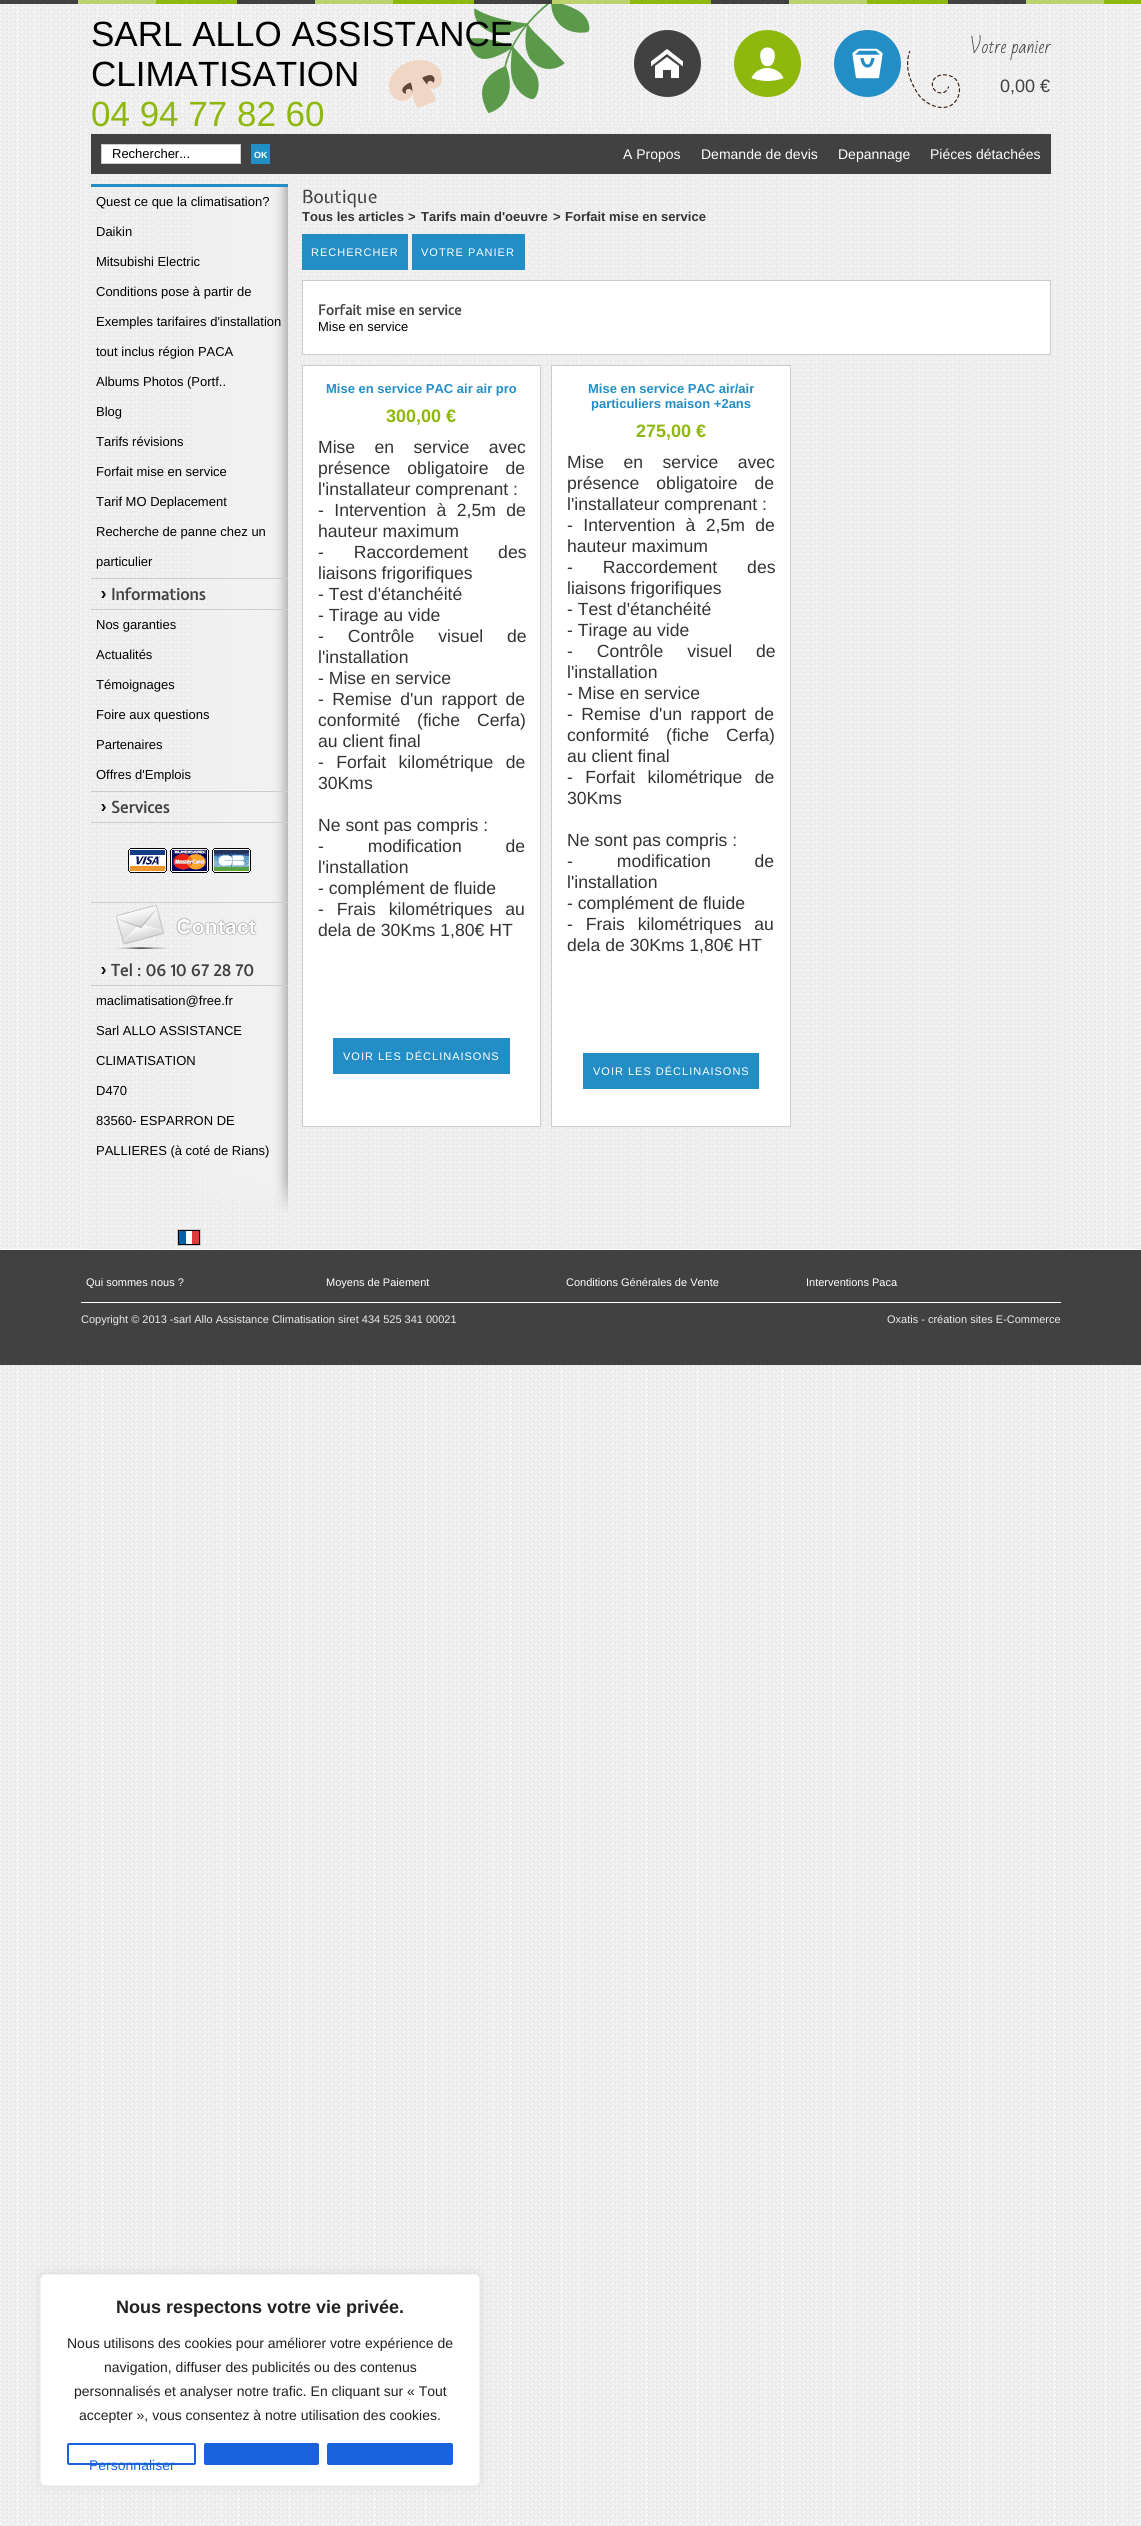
#include <cairo.h>
#include <math.h>
#include <stddef.h>

typedef struct { double x, y; const char *s; } line_t;
typedef struct { double x, y, w, h; unsigned color; } box_t;

static void ink(cairo_t *ctx, unsigned color) {
    cairo_set_source_rgb(ctx, (color >> 16) / 255.0, (color >> 8 & 255) / 255.0, (color & 255) / 255.0);
}

static void write_spaced(cairo_t *ctx, double x, double y, const char *s, double letter, double word) {
    cairo_move_to(ctx, x, y);
    while (*s) {
        char ch[5] = {0};
        int n = 0;
        do ch[n++] = *s++; while ((*s & 0xC0) == 0x80);
        cairo_show_text(ctx, ch);
        cairo_rel_move_to(ctx, letter + word * (*ch == ' '), 0);
    }
}

static void round_path(cairo_t *ctx, double x, double y, double w, double h, double r) {
    cairo_new_sub_path(ctx);
    cairo_arc(ctx, x + w - r, y + h - r, r, 0, M_PI / 2);
    cairo_arc(ctx, x + r, y + h - r, r, M_PI / 2, M_PI);
    cairo_arc(ctx, x + r, y + r, r, M_PI, 1.5 * M_PI);
    cairo_arc(ctx, x + w - r, y + r, r, 1.5 * M_PI, 2 * M_PI);
    cairo_close_path(ctx);
}

static void blur_box(cairo_t *ctx, double x, double y, double w, double h, double r, double blur, double alpha) {
    cairo_push_group_with_content(ctx, CAIRO_CONTENT_ALPHA);
    cairo_set_operator(ctx, CAIRO_OPERATOR_SOURCE);
    for (int i = 15; i >= -15 && fmin(w, h) + blur * i / 3 > 0; i -= 2) {
        double e = blur * i / 6;
        cairo_set_source_rgba(ctx, 0, 0, 0, alpha * erfc((i - 1) / 8.5) / 2);
        round_path(ctx, x - e, y - e, w + 2 * e, h + 2 * e, fmax(0, fmin(r + e + blur * .6, fmin(w, h) / 2 + e)));
        cairo_fill(ctx);
    }
    cairo_pattern_t *soft = cairo_pop_group(ctx);
    cairo_mask(ctx, soft);
    cairo_pattern_destroy(soft);
}

static void paste(cairo_t *ctx, const char *path, double x, double y, double w, double h) {
    cairo_surface_t *image = cairo_image_surface_create_from_png(path);
    cairo_save(ctx);
    cairo_set_source_surface(ctx, image, x, y);
    cairo_rectangle(ctx, x, y, w, h);
    cairo_fill(ctx);
    cairo_restore(ctx);
    cairo_surface_destroy(image);
}

int main(void) {
    cairo_surface_t *surface = cairo_image_surface_create(CAIRO_FORMAT_RGB24, 1141, 2526);
    cairo_t *ctx = cairo_create(surface);
    cairo_font_options_t *options = cairo_font_options_create();
    cairo_font_options_set_hint_metrics(options, CAIRO_HINT_METRICS_OFF);
    cairo_font_options_set_hint_style(options, CAIRO_HINT_STYLE_NONE);
    cairo_set_font_options(ctx, options);
    cairo_set_miter_limit(ctx, 4);
    ink(ctx, 0xFFFFFF);
    cairo_paint(ctx);
    paste(ctx, "media/1.png", 0, 4, 1141, 2522);
    ink(ctx, 0x8EB80D);
    cairo_rectangle(ctx, 78, 0, 1063, 4);
    cairo_fill(ctx);
    paste(ctx, "media/2.png", 0, 0, 1104, 4);
    paste(ctx, "media/3.png", 81, 4, 980, 120);
    cairo_select_font_face(ctx, "Liberation Sans", CAIRO_FONT_SLANT_NORMAL, CAIRO_FONT_WEIGHT_NORMAL);
    cairo_set_font_size(ctx, 35);
    ink(ctx, 0x000000);
    cairo_move_to(ctx, 91, 46);
    cairo_show_text(ctx, "SARL ALLO ASSISTANCE");
    cairo_move_to(ctx, 91, 86);
    cairo_show_text(ctx, "CLIMATISATION");
    paste(ctx, "media/7.png", 81, 124, 980, 1125);
    ink(ctx, 0x8EB80D);
    cairo_move_to(ctx, 91, 126);
    cairo_show_text(ctx, "04 94 77 82 60");
    ink(ctx, 0x414141);
    cairo_new_path(ctx);
    cairo_arc(ctx, 667.5, 63.5, 33.5, 0, 2 * M_PI);
    cairo_fill(ctx);
    paste(ctx, "media/4.png", 651, 49, 32, 29);
    ink(ctx, 0x8EB80D);
    cairo_arc(ctx, 767.5, 63.5, 33.5, 0, 2 * M_PI);
    cairo_fill(ctx);
    paste(ctx, "media/5.png", 751, 47, 33, 34);
    ink(ctx, 0x238EC6);
    cairo_arc(ctx, 867.5, 63.5, 33.5, 0, 2 * M_PI);
    cairo_fill(ctx);
    paste(ctx, "media/6.png", 852, 48, 31, 31);
    cairo_select_font_face(ctx, "Bad Script", CAIRO_FONT_SLANT_NORMAL, CAIRO_FONT_WEIGHT_NORMAL);
    cairo_set_font_size(ctx, 18);
    ink(ctx, 0x414141);
    cairo_move_to(ctx, 970, 53);
    cairo_show_text(ctx, "Votre panier");
    cairo_select_font_face(ctx, "Liberation Sans", CAIRO_FONT_SLANT_NORMAL, CAIRO_FONT_WEIGHT_NORMAL);
    cairo_move_to(ctx, 1000, 92);
    cairo_show_text(ctx, "0,00 €");
    cairo_rectangle(ctx, 91, 134, 960, 40);
    cairo_fill(ctx);
    ink(ctx, 0xFFFFFF);
    cairo_rectangle(ctx, 101.5, 144.5, 139, 19);
    cairo_fill_preserve(ctx);
    ink(ctx, 0xCCCCCC);
    cairo_set_line_width(ctx, 1);
    cairo_stroke(ctx);
    cairo_set_font_size(ctx, 13);
    ink(ctx, 0x000000);
    cairo_move_to(ctx, 112, 158);
    cairo_show_text(ctx, "Rechercher...");
    ink(ctx, 0x238EC6);
    cairo_rectangle(ctx, 251, 144, 19, 20);
    cairo_fill(ctx);
    cairo_select_font_face(ctx, "Liberation Sans", CAIRO_FONT_SLANT_NORMAL, CAIRO_FONT_WEIGHT_BOLD);
    cairo_set_font_size(ctx, 9);
    ink(ctx, 0xFFFFFF);
    cairo_move_to(ctx, 254, 158);
    cairo_show_text(ctx, "OK");
    cairo_select_font_face(ctx, "Liberation Sans", CAIRO_FONT_SLANT_NORMAL, CAIRO_FONT_WEIGHT_NORMAL);
    cairo_set_font_size(ctx, 14);
    {
        static const line_t items[] = {
            {623, 159, "A Propos"},
            {701, 159, "Demande de devis"},
            {838, 159, "Depannage"},
            {930, 159, "Piéces détachées"},
        };
        for (size_t i = 0; i < sizeof items / sizeof *items; i++) {
            cairo_move_to(ctx, items[i].x, items[i].y);
            cairo_show_text(ctx, items[i].s);
        }
    }
    ink(ctx, 0x238EC6);
    cairo_rectangle(ctx, 91, 184, 197, 3);
    cairo_fill(ctx);
    paste(ctx, "media/8.png", 194, 187, 94, 30);
    cairo_set_font_size(ctx, 13);
    ink(ctx, 0x000000);
    cairo_move_to(ctx, 96, 206);
    cairo_show_text(ctx, "Quest ce que la climatisation?");
    paste(ctx, "media/9.png", 194, 217, 94, 30);
    cairo_move_to(ctx, 96, 236);
    cairo_show_text(ctx, "Daikin");
    paste(ctx, "media/10.png", 194, 247, 94, 30);
    cairo_move_to(ctx, 96, 266);
    cairo_show_text(ctx, "Mitsubishi Electric");
    paste(ctx, "media/11.png", 194, 277, 94, 30);
    cairo_move_to(ctx, 96, 296);
    cairo_show_text(ctx, "Conditions pose à partir de");
    paste(ctx, "media/12.png", 194, 307, 94, 60);
    cairo_move_to(ctx, 96, 326);
    cairo_show_text(ctx, "Exemples tarifaires d'installation");
    cairo_move_to(ctx, 96, 356);
    cairo_show_text(ctx, "tout inclus région PACA");
    paste(ctx, "media/10.png", 194, 367, 94, 30);
    cairo_move_to(ctx, 96, 386);
    cairo_show_text(ctx, "Albums Photos (Portf..");
    paste(ctx, "media/11.png", 194, 397, 94, 30);
    cairo_move_to(ctx, 96, 416);
    cairo_show_text(ctx, "Blog");
    paste(ctx, "media/8.png", 194, 427, 94, 30);
    cairo_move_to(ctx, 96, 446);
    cairo_show_text(ctx, "Tarifs révisions");
    paste(ctx, "media/9.png", 194, 457, 94, 30);
    cairo_move_to(ctx, 96, 476);
    cairo_show_text(ctx, "Forfait mise en service");
    paste(ctx, "media/10.png", 194, 487, 94, 30);
    cairo_move_to(ctx, 96, 506);
    cairo_show_text(ctx, "Tarif MO Deplacement");
    paste(ctx, "media/13.png", 194, 517, 94, 60);
    cairo_move_to(ctx, 96, 536);
    cairo_show_text(ctx, "Recherche de panne chez un");
    cairo_move_to(ctx, 96, 566);
    cairo_show_text(ctx, "particulier");
    paste(ctx, "media/14.png", 207, 577, 81, 1);
    ink(ctx, 0xCCCCCC);
    cairo_rectangle(ctx, 91, 578, 197, 1);
    cairo_fill(ctx);
    paste(ctx, "media/8.png", 194, 579, 94, 30);
    paste(ctx, "media/15.png", 101, 591, 5, 7);
    cairo_rectangle(ctx, 91, 609, 197, 1);
    cairo_fill(ctx);
    cairo_select_font_face(ctx, "Expletus Sans", CAIRO_FONT_SLANT_NORMAL, CAIRO_FONT_WEIGHT_BOLD);
    cairo_set_font_size(ctx, 16);
    ink(ctx, 0x414141);
    cairo_move_to(ctx, 111, 600);
    cairo_show_text(ctx, "Informations");
    paste(ctx, "media/16.png", 194, 610, 94, 30);
    cairo_select_font_face(ctx, "Liberation Sans", CAIRO_FONT_SLANT_NORMAL, CAIRO_FONT_WEIGHT_NORMAL);
    cairo_set_font_size(ctx, 13);
    ink(ctx, 0x000000);
    cairo_move_to(ctx, 96, 629);
    cairo_show_text(ctx, "Nos garanties");
    paste(ctx, "media/17.png", 194, 640, 94, 30);
    cairo_move_to(ctx, 96, 659);
    cairo_show_text(ctx, "Actualités");
    paste(ctx, "media/18.png", 194, 670, 94, 30);
    cairo_move_to(ctx, 96, 689);
    cairo_show_text(ctx, "Témoignages");
    paste(ctx, "media/19.png", 194, 700, 94, 30);
    cairo_move_to(ctx, 96, 719);
    cairo_show_text(ctx, "Foire aux questions");
    paste(ctx, "media/16.png", 194, 730, 94, 30);
    cairo_move_to(ctx, 96, 749);
    cairo_show_text(ctx, "Partenaires");
    paste(ctx, "media/17.png", 194, 760, 94, 30);
    cairo_move_to(ctx, 96, 779);
    cairo_show_text(ctx, "Offres d'Emplois");
    paste(ctx, "media/20.png", 202, 790, 86, 1);
    ink(ctx, 0xCCCCCC);
    cairo_rectangle(ctx, 91, 791, 197, 1);
    cairo_fill(ctx);
    paste(ctx, "media/17.png", 194, 792, 94, 30);
    paste(ctx, "media/21.png", 101, 804, 5, 7);
    cairo_rectangle(ctx, 91, 822, 197, 1);
    cairo_fill(ctx);
    cairo_select_font_face(ctx, "Expletus Sans", CAIRO_FONT_SLANT_NORMAL, CAIRO_FONT_WEIGHT_BOLD);
    cairo_set_font_size(ctx, 16);
    ink(ctx, 0x414141);
    cairo_move_to(ctx, 111, 813);
    cairo_show_text(ctx, "Services");
    paste(ctx, "media/22.png", 194, 823, 94, 20);
    paste(ctx, "media/23.png", 194, 843, 94, 38);
    paste(ctx, "media/24.png", 128, 848, 123, 25);
    paste(ctx, "media/25.png", 194, 881, 94, 20);
    paste(ctx, "media/26.png", 207, 901, 81, 1);
    ink(ctx, 0xCCCCCC);
    cairo_rectangle(ctx, 91, 902, 197, 1);
    cairo_fill(ctx);
    paste(ctx, "media/27.png", 194, 903, 94, 52);
    paste(ctx, "media/28.png", 116, 905, 141, 44);
    paste(ctx, "media/8.png", 194, 955, 94, 30);
    paste(ctx, "media/15.png", 101, 967, 5, 7);
    cairo_rectangle(ctx, 91, 985, 197, 1);
    cairo_fill(ctx);
    ink(ctx, 0x414141);
    cairo_move_to(ctx, 111, 976);
    cairo_show_text(ctx, "Tel : 06 10 67 28 70");
    paste(ctx, "media/16.png", 194, 986, 94, 30);
    cairo_select_font_face(ctx, "Liberation Sans", CAIRO_FONT_SLANT_NORMAL, CAIRO_FONT_WEIGHT_NORMAL);
    cairo_set_font_size(ctx, 13);
    ink(ctx, 0x000000);
    cairo_move_to(ctx, 96, 1005);
    cairo_show_text(ctx, "maclimatisation@free.fr");
    paste(ctx, "media/29.png", 194, 1016, 94, 60);
    cairo_move_to(ctx, 96, 1035);
    cairo_show_text(ctx, "Sarl ALLO ASSISTANCE");
    cairo_move_to(ctx, 96, 1065);
    cairo_show_text(ctx, "CLIMATISATION");
    paste(ctx, "media/19.png", 194, 1076, 94, 30);
    cairo_move_to(ctx, 96, 1095);
    cairo_show_text(ctx, "D470");
    paste(ctx, "media/30.png", 194, 1106, 94, 60);
    cairo_move_to(ctx, 96, 1125);
    cairo_show_text(ctx, "83560- ESPARRON DE");
    cairo_move_to(ctx, 96, 1155);
    cairo_show_text(ctx, "PALLIERES (à coté de Rians)");
    paste(ctx, "media/31.png", 194, 1166, 94, 46);
    paste(ctx, "media/32.png", 178, 1230, 22, 15);
    cairo_rectangle(ctx, 177.5, 1229.5, 23, 16);
    ink(ctx, 0xCCCCCC);
    cairo_stroke(ctx);
    cairo_select_font_face(ctx, "Expletus Sans", CAIRO_FONT_SLANT_NORMAL, CAIRO_FONT_WEIGHT_NORMAL);
    cairo_set_font_size(ctx, 18);
    ink(ctx, 0x414141);
    cairo_move_to(ctx, 302, 203);
    cairo_show_text(ctx, "Boutique");
    cairo_select_font_face(ctx, "Liberation Sans", CAIRO_FONT_SLANT_NORMAL, CAIRO_FONT_WEIGHT_BOLD);
    cairo_set_font_size(ctx, 13);
    ink(ctx, 0x333333);
    {
        static const line_t items[] = {
            {302, 221, "Tous les articles"},
            {408, 221, ">"},
            {421, 221, "Tarifs main d'oeuvre"},
            {553, 221, ">"},
            {565, 221, "Forfait mise en service"},
        };
        for (size_t i = 0; i < sizeof items / sizeof *items; i++) {
            cairo_move_to(ctx, items[i].x, items[i].y);
            cairo_show_text(ctx, items[i].s);
        }
    }
    ink(ctx, 0x238EC6);
    cairo_rectangle(ctx, 302, 234, 106, 36);
    cairo_fill(ctx);
    cairo_select_font_face(ctx, "Liberation Sans", CAIRO_FONT_SLANT_NORMAL, CAIRO_FONT_WEIGHT_NORMAL);
    cairo_set_font_size(ctx, 11);
    ink(ctx, 0xFFFFFF);
    write_spaced(ctx, 311, 256, "RECHERCHER", 1, 0);
    ink(ctx, 0x238EC6);
    cairo_rectangle(ctx, 412, 234, 113, 36);
    cairo_fill(ctx);
    ink(ctx, 0xFFFFFF);
    write_spaced(ctx, 421, 256, "VOTRE PANIER", 1, 0);
    cairo_rectangle(ctx, 302.5, 280.5, 748, 74);
    cairo_fill_preserve(ctx);
    ink(ctx, 0xCCCCCC);
    cairo_stroke(ctx);
    cairo_select_font_face(ctx, "Expletus Sans", CAIRO_FONT_SLANT_NORMAL, CAIRO_FONT_WEIGHT_BOLD);
    cairo_set_font_size(ctx, 14);
    ink(ctx, 0x414141);
    cairo_move_to(ctx, 318, 315);
    cairo_show_text(ctx, "Forfait mise en service");
    cairo_select_font_face(ctx, "Liberation Sans", CAIRO_FONT_SLANT_NORMAL, CAIRO_FONT_WEIGHT_NORMAL);
    cairo_set_font_size(ctx, 13);
    ink(ctx, 0x000000);
    cairo_move_to(ctx, 318, 331);
    cairo_show_text(ctx, "Mise en service");
    ink(ctx, 0xFFFFFF);
    cairo_rectangle(ctx, 302.5, 365.5, 238, 761);
    cairo_fill_preserve(ctx);
    ink(ctx, 0xCCCCCC);
    cairo_stroke(ctx);
    cairo_select_font_face(ctx, "Liberation Sans", CAIRO_FONT_SLANT_NORMAL, CAIRO_FONT_WEIGHT_BOLD);
    ink(ctx, 0x238EC6);
    cairo_move_to(ctx, 326, 393);
    cairo_show_text(ctx, "Mise en service PAC air air pro");
    cairo_set_font_size(ctx, 18);
    ink(ctx, 0x8EB80D);
    cairo_move_to(ctx, 386, 422);
    cairo_show_text(ctx, "300,00 €");
    cairo_select_font_face(ctx, "Liberation Sans", CAIRO_FONT_SLANT_NORMAL, CAIRO_FONT_WEIGHT_NORMAL);
    cairo_set_font_size(ctx, 17.6);
    ink(ctx, 0x333333);
    write_spaced(ctx, 318, 453, "Mise en service avec", 0, 14.5);
    write_spaced(ctx, 318, 474, "présence obligatoire de", 0, 12);
    cairo_move_to(ctx, 318, 495);
    cairo_show_text(ctx, "l'installateur comprenant :");
    write_spaced(ctx, 318, 516, "- Intervention à 2,5m de", 0, 5.5);
    cairo_move_to(ctx, 318, 537);
    cairo_show_text(ctx, "hauteur maximum");
    write_spaced(ctx, 318, 558, "- Raccordement des", 0, 25);
    {
        static const line_t items[] = {
            {318, 579, "liaisons frigorifiques"},
            {318, 600, "- Test d'étanchéité"},
            {318, 621, "- Tirage au vide"},
        };
        for (size_t i = 0; i < sizeof items / sizeof *items; i++) {
            cairo_move_to(ctx, items[i].x, items[i].y);
            cairo_show_text(ctx, items[i].s);
        }
    }
    write_spaced(ctx, 318, 642, "- Contrôle visuel de", 0, 19);
    cairo_move_to(ctx, 318, 663);
    cairo_show_text(ctx, "l'installation");
    cairo_move_to(ctx, 318, 684);
    cairo_show_text(ctx, "- Mise en service");
    write_spaced(ctx, 318, 705, "- Remise d'un rapport de", 0, 3.5);
    write_spaced(ctx, 318, 726, "conformité (fiche Cerfa)", 0, 12);
    cairo_move_to(ctx, 318, 747);
    cairo_show_text(ctx, "au client final");
    write_spaced(ctx, 318, 768, "- Forfait kilométrique de", 0, 7.5);
    cairo_move_to(ctx, 318, 789);
    cairo_show_text(ctx, "30Kms");
    cairo_move_to(ctx, 318, 831);
    cairo_show_text(ctx, "Ne sont pas compris :");
    write_spaced(ctx, 318, 852, "- modification de", 0, 39);
    cairo_move_to(ctx, 318, 873);
    cairo_show_text(ctx, "l'installation");
    cairo_move_to(ctx, 318, 894);
    cairo_show_text(ctx, "- complément de fluide");
    write_spaced(ctx, 318, 915, "- Frais kilométriques au", 0, 8);
    cairo_move_to(ctx, 318, 936);
    cairo_show_text(ctx, "dela de 30Kms 1,80€ HT");
    ink(ctx, 0x238EC6);
    cairo_rectangle(ctx, 333, 1038, 177, 36);
    cairo_fill(ctx);
    cairo_set_font_size(ctx, 11);
    ink(ctx, 0xFFFFFF);
    write_spaced(ctx, 343, 1060, "VOIR LES DÉCLINAISONS", 1, 0);
    cairo_rectangle(ctx, 551.5, 365.5, 239, 761);
    cairo_fill_preserve(ctx);
    ink(ctx, 0xCCCCCC);
    cairo_stroke(ctx);
    cairo_select_font_face(ctx, "Liberation Sans", CAIRO_FONT_SLANT_NORMAL, CAIRO_FONT_WEIGHT_BOLD);
    cairo_set_font_size(ctx, 13);
    ink(ctx, 0x238EC6);
    cairo_move_to(ctx, 588, 393);
    cairo_show_text(ctx, "Mise en service PAC air/air");
    cairo_move_to(ctx, 591, 408);
    cairo_show_text(ctx, "particuliers maison +2ans");
    cairo_set_font_size(ctx, 18);
    ink(ctx, 0x8EB80D);
    cairo_move_to(ctx, 636, 437);
    cairo_show_text(ctx, "275,00 €");
    cairo_select_font_face(ctx, "Liberation Sans", CAIRO_FONT_SLANT_NORMAL, CAIRO_FONT_WEIGHT_NORMAL);
    cairo_set_font_size(ctx, 17.6);
    ink(ctx, 0x333333);
    write_spaced(ctx, 567, 468, "Mise en service avec", 0, 14.5);
    write_spaced(ctx, 567, 489, "présence obligatoire de", 0, 12);
    cairo_move_to(ctx, 567, 510);
    cairo_show_text(ctx, "l'installateur comprenant :");
    write_spaced(ctx, 567, 531, "- Intervention à 2,5m de", 0, 5.5);
    cairo_move_to(ctx, 567, 552);
    cairo_show_text(ctx, "hauteur maximum");
    write_spaced(ctx, 567, 573, "- Raccordement des", 0, 25);
    {
        static const line_t items[] = {
            {567, 594, "liaisons frigorifiques"},
            {567, 615, "- Test d'étanchéité"},
            {567, 636, "- Tirage au vide"},
        };
        for (size_t i = 0; i < sizeof items / sizeof *items; i++) {
            cairo_move_to(ctx, items[i].x, items[i].y);
            cairo_show_text(ctx, items[i].s);
        }
    }
    write_spaced(ctx, 567, 657, "- Contrôle visuel de", 0, 19);
    cairo_move_to(ctx, 567, 678);
    cairo_show_text(ctx, "l'installation");
    cairo_move_to(ctx, 567, 699);
    cairo_show_text(ctx, "- Mise en service");
    write_spaced(ctx, 567, 720, "- Remise d'un rapport de", 0, 3.5);
    write_spaced(ctx, 567, 741, "conformité (fiche Cerfa)", 0, 12);
    cairo_move_to(ctx, 567, 762);
    cairo_show_text(ctx, "au client final");
    write_spaced(ctx, 567, 783, "- Forfait kilométrique de", 0, 7.5);
    cairo_move_to(ctx, 567, 804);
    cairo_show_text(ctx, "30Kms");
    cairo_move_to(ctx, 567, 846);
    cairo_show_text(ctx, "Ne sont pas compris :");
    write_spaced(ctx, 567, 867, "- modification de", 0, 39);
    cairo_move_to(ctx, 567, 888);
    cairo_show_text(ctx, "l'installation");
    cairo_move_to(ctx, 567, 909);
    cairo_show_text(ctx, "- complément de fluide");
    write_spaced(ctx, 567, 930, "- Frais kilométriques au", 0, 8);
    cairo_move_to(ctx, 567, 951);
    cairo_show_text(ctx, "dela de 30Kms 1,80€ HT");
    ink(ctx, 0x238EC6);
    cairo_rectangle(ctx, 583, 1053, 176, 36);
    cairo_fill(ctx);
    cairo_set_font_size(ctx, 11);
    ink(ctx, 0xFFFFFF);
    write_spaced(ctx, 593, 1075, "VOIR LES DÉCLINAISONS", 1, 0);
    {
        static const box_t items[] = {
            {0, 1250, 1141, 115, 0x414141},
            {0, 1249, 1141, 1, 0xFFFFFF},
            {81, 1302, 980, 1, 0xFFFFFF},
        };
        for (size_t i = 0; i < sizeof items / sizeof *items; i++) {
            ink(ctx, items[i].color);
            cairo_rectangle(ctx, items[i].x, items[i].y, items[i].w, items[i].h);
            cairo_fill(ctx);
        }
    }
    {
        static const line_t items[] = {
            {86, 1286, "Qui sommes nous ?"},
            {326, 1286, "Moyens de Paiement"},
            {566, 1286, "Conditions Générales de Vente"},
            {806, 1286, "Interventions Paca"},
        };
        for (size_t i = 0; i < sizeof items / sizeof *items; i++) {
            cairo_move_to(ctx, items[i].x, items[i].y);
            cairo_show_text(ctx, items[i].s);
        }
    }
    ink(ctx, 0xEBEBEB);
    cairo_move_to(ctx, 81, 1323);
    cairo_show_text(ctx, "Copyright © 2013 -sarl Allo Assistance Climatisation siret 434 525 341 00021");
    cairo_move_to(ctx, 887, 1323);
    cairo_show_text(ctx, "Oxatis - création sites E-Commerce");
    ink(ctx, 0xACABAB);
    blur_box(ctx, 40, 2273, 440, 212, 6, 5, 0.3);
    ink(ctx, 0xFFFFFF);
    round_path(ctx, 40.5, 2274.5, 439, 211, 5.5);
    cairo_fill_preserve(ctx);
    ink(ctx, 0xF4F4F4);
    cairo_stroke(ctx);
    cairo_select_font_face(ctx, "Liberation Sans", CAIRO_FONT_SLANT_NORMAL, CAIRO_FONT_WEIGHT_BOLD);
    cairo_set_font_size(ctx, 18);
    ink(ctx, 0x212121);
    cairo_move_to(ctx, 116, 2313);
    cairo_show_text(ctx, "Nous respectons votre vie privée.");
    cairo_select_font_face(ctx, "Liberation Sans", CAIRO_FONT_SLANT_NORMAL, CAIRO_FONT_WEIGHT_NORMAL);
    cairo_set_font_size(ctx, 14);
    {
        static const line_t items[] = {
            {67, 2348, "Nous utilisons des cookies pour améliorer votre expérience de"},
            {104, 2372, "navigation, diffuser des publicités ou des contenus"},
            {74, 2396, "personnalisés et analyser notre trafic. En cliquant sur « Tout"},
            {79, 2420, "accepter », vous consentez à notre utilisation des cookies."},
        };
        for (size_t i = 0; i < sizeof items / sizeof *items; i++) {
            cairo_move_to(ctx, items[i].x, items[i].y);
            cairo_show_text(ctx, items[i].s);
        }
    }
    round_path(ctx, 68, 2444, 127, 20, 1);
    ink(ctx, 0x1863DC);
    cairo_set_line_width(ctx, 2);
    cairo_stroke(ctx);
    cairo_move_to(ctx, 89, 2470);
    cairo_show_text(ctx, "Personnaliser");
    round_path(ctx, 205, 2444, 113, 20, 1);
    cairo_fill_preserve(ctx);
    cairo_stroke(ctx);
    round_path(ctx, 328, 2444, 124, 20, 1);
    cairo_fill_preserve(ctx);
    cairo_stroke(ctx);
    cairo_surface_write_to_png(surface, "image.png");
    cairo_font_options_destroy(options);
    cairo_destroy(ctx);
    cairo_surface_destroy(surface);
    return 0;
}
